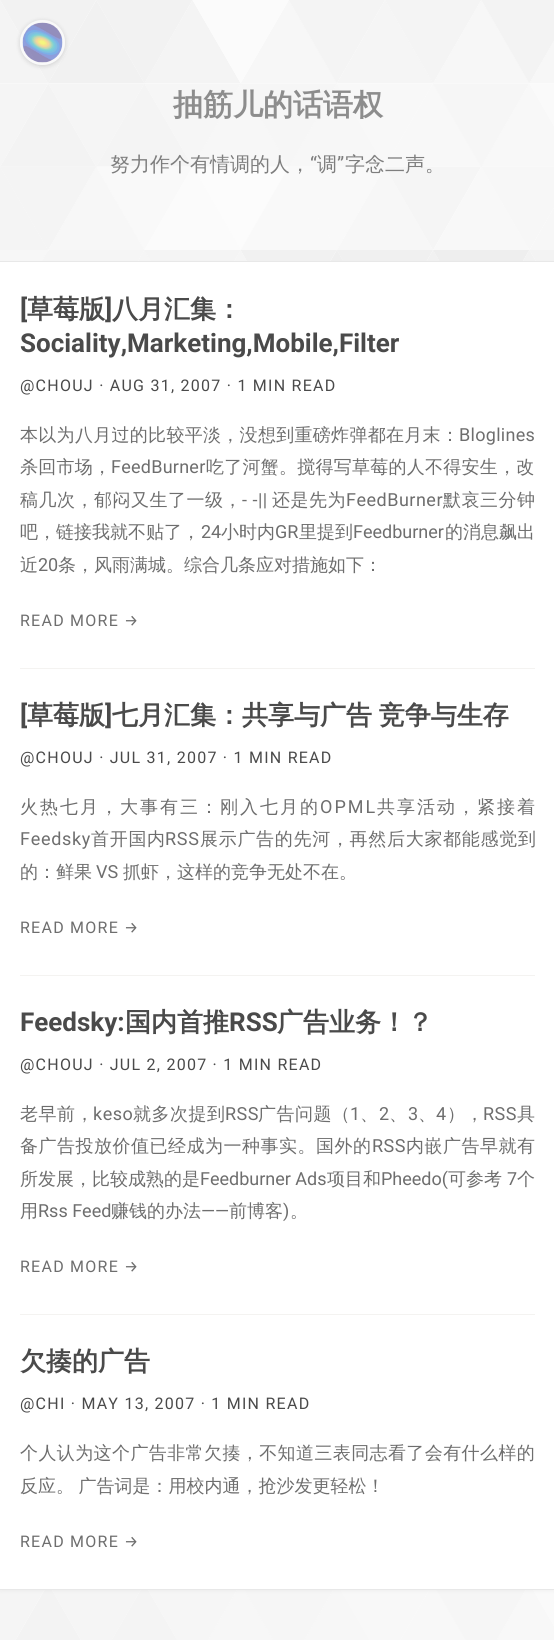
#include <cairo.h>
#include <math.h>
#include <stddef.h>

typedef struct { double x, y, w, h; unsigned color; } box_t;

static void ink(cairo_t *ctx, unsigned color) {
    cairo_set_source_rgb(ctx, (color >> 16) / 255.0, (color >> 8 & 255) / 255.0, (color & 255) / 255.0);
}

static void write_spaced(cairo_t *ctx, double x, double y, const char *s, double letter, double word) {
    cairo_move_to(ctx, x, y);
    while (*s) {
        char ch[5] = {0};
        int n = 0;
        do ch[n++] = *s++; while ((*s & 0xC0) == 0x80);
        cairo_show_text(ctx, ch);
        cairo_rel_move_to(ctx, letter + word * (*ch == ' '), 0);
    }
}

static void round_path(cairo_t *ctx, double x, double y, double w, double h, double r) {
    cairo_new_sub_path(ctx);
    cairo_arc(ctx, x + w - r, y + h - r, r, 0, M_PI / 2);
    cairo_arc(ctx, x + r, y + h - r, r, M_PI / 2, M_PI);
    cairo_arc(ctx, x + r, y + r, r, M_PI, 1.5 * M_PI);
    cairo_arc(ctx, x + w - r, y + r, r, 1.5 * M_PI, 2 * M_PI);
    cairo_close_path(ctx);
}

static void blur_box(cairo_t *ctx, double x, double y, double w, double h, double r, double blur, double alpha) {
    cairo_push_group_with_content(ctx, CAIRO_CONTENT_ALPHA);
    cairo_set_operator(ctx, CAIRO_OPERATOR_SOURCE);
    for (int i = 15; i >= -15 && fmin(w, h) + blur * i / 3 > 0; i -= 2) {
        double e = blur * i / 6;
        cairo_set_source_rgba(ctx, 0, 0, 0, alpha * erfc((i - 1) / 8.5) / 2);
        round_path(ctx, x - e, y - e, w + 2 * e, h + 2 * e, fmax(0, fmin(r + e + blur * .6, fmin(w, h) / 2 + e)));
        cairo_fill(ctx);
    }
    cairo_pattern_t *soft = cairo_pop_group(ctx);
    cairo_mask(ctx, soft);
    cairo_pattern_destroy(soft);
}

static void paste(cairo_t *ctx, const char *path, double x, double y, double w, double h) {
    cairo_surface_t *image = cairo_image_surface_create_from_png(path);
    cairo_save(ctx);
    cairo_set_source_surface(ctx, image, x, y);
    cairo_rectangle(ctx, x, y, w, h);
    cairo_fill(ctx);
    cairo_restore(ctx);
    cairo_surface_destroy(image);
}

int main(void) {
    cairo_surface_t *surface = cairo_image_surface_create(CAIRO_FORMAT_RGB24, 554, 1640);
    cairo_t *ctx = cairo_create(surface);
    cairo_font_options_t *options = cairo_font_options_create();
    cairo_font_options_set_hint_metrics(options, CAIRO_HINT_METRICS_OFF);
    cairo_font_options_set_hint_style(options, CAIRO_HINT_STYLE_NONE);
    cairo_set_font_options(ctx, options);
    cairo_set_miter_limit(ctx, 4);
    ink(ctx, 0xFFFFFF);
    cairo_paint(ctx);
    paste(ctx, "media/1.png", 0, 0, 554, 1640);
    cairo_save(ctx);
    cairo_set_fill_rule(ctx, CAIRO_FILL_RULE_EVEN_ODD);
    cairo_new_path(ctx);
    cairo_move_to(ctx, 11, 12);
    cairo_line_to(ctx, 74, 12);
    cairo_line_to(ctx, 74, 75);
    cairo_line_to(ctx, 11, 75);
    cairo_close_path(ctx);
    cairo_move_to(ctx, 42.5, 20);
    cairo_curve_to(ctx, 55, 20, 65, 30, 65, 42.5);
    cairo_curve_to(ctx, 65, 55, 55, 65, 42.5, 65);
    cairo_curve_to(ctx, 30, 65, 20, 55, 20, 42.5);
    cairo_curve_to(ctx, 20, 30, 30, 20, 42.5, 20);
    cairo_close_path(ctx);
    cairo_clip(ctx);
    ink(ctx, 0x000000);
    blur_box(ctx, 20, 21, 45, 45, 22.5, 2.5, 0.15);
    cairo_restore(ctx);
    cairo_arc(ctx, 42.5, 42.5, 21, 0, 2 * M_PI);
    cairo_set_source_rgba(ctx, 1, 1, 1, 0.5);
    cairo_set_line_width(ctx, 3);
    cairo_stroke(ctx);
    paste(ctx, "media/2.png", 22, 22, 41, 41);
    cairo_select_font_face(ctx, "WenQuanYi Zen Hei", CAIRO_FONT_SLANT_NORMAL, CAIRO_FONT_WEIGHT_BOLD);
    cairo_set_font_size(ctx, 30);
    ink(ctx, 0x8D8D8D);
    cairo_move_to(ctx, 173, 115);
    cairo_show_text(ctx, "抽筋儿的话语权");
    cairo_select_font_face(ctx, "WenQuanYi Zen Hei Medium", CAIRO_FONT_SLANT_NORMAL, CAIRO_FONT_WEIGHT_NORMAL);
    cairo_set_font_size(ctx, 20);
    ink(ctx, 0x7E7E7E);
    cairo_move_to(ctx, 110, 171);
    cairo_show_text(ctx, "努力作个有情调的人，");
    cairo_select_font_face(ctx, "Roboto", CAIRO_FONT_SLANT_NORMAL, CAIRO_FONT_WEIGHT_NORMAL);
    cairo_move_to(ctx, 310, 171);
    cairo_show_text(ctx, "“");
    cairo_select_font_face(ctx, "WenQuanYi Zen Hei Medium", CAIRO_FONT_SLANT_NORMAL, CAIRO_FONT_WEIGHT_NORMAL);
    cairo_move_to(ctx, 317, 171);
    cairo_show_text(ctx, "调");
    cairo_select_font_face(ctx, "Roboto", CAIRO_FONT_SLANT_NORMAL, CAIRO_FONT_WEIGHT_NORMAL);
    cairo_move_to(ctx, 337, 171);
    cairo_show_text(ctx, "”");
    cairo_select_font_face(ctx, "WenQuanYi Zen Hei Medium", CAIRO_FONT_SLANT_NORMAL, CAIRO_FONT_WEIGHT_NORMAL);
    cairo_move_to(ctx, 345, 171);
    cairo_show_text(ctx, "字念二声。");
    ink(ctx, 0x000000);
    blur_box(ctx, 0, 263, 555, 1328, 0, 2.5, 0.04);
    {
        static const box_t items[] = {
            {0, 262, 554, 1327, 0xFFFFFF},
            {0, 261, 554, 1, 0xE8E8E8},
            {0, 1589, 554, 1, 0xE8E8E8},
        };
        for (size_t i = 0; i < sizeof items / sizeof *items; i++) {
            ink(ctx, items[i].color);
            cairo_rectangle(ctx, items[i].x, items[i].y, items[i].w, items[i].h);
            cairo_fill(ctx);
        }
    }
    cairo_select_font_face(ctx, "Roboto", CAIRO_FONT_SLANT_NORMAL, CAIRO_FONT_WEIGHT_BOLD);
    cairo_set_font_size(ctx, 26);
    ink(ctx, 0x4A4A4A);
    cairo_move_to(ctx, 20, 318);
    cairo_show_text(ctx, "[");
    cairo_select_font_face(ctx, "WenQuanYi Zen Hei", CAIRO_FONT_SLANT_NORMAL, CAIRO_FONT_WEIGHT_BOLD);
    cairo_move_to(ctx, 27, 318);
    cairo_show_text(ctx, "草莓版");
    cairo_select_font_face(ctx, "Roboto", CAIRO_FONT_SLANT_NORMAL, CAIRO_FONT_WEIGHT_BOLD);
    cairo_move_to(ctx, 105, 318);
    cairo_show_text(ctx, "]");
    cairo_select_font_face(ctx, "WenQuanYi Zen Hei", CAIRO_FONT_SLANT_NORMAL, CAIRO_FONT_WEIGHT_BOLD);
    cairo_move_to(ctx, 112, 318);
    cairo_show_text(ctx, "八月汇集：");
    cairo_select_font_face(ctx, "Roboto", CAIRO_FONT_SLANT_NORMAL, CAIRO_FONT_WEIGHT_BOLD);
    cairo_move_to(ctx, 20, 352);
    cairo_show_text(ctx, "Sociality,Marketing,Mobile,Filter");
    cairo_select_font_face(ctx, "Roboto", CAIRO_FONT_SLANT_NORMAL, CAIRO_FONT_WEIGHT_NORMAL);
    cairo_set_font_size(ctx, 16);
    write_spaced(ctx, 20, 391, "@CHOUJ · AUG 31, 2007 · 1 MIN READ", 1.25, 0);
    cairo_select_font_face(ctx, "WenQuanYi Zen Hei Medium", CAIRO_FONT_SLANT_NORMAL, CAIRO_FONT_WEIGHT_NORMAL);
    cairo_set_font_size(ctx, 18);
    ink(ctx, 0x6E6E6E);
    write_spaced(ctx, 20, 441, "本以为八月过的比较平淡，没想到重磅炸弹都在月末：", 0.3, 0);
    cairo_select_font_face(ctx, "Roboto", CAIRO_FONT_SLANT_NORMAL, CAIRO_FONT_WEIGHT_NORMAL);
    write_spaced(ctx, 459, 441, "Bloglines", 0.3, 0);
    cairo_select_font_face(ctx, "WenQuanYi Zen Hei Medium", CAIRO_FONT_SLANT_NORMAL, CAIRO_FONT_WEIGHT_NORMAL);
    write_spaced(ctx, 20, 473, "杀回市场，", 0.25, 0);
    cairo_select_font_face(ctx, "Roboto", CAIRO_FONT_SLANT_NORMAL, CAIRO_FONT_WEIGHT_NORMAL);
    write_spaced(ctx, 111, 473, "FeedBurner", 0.25, 0);
    cairo_select_font_face(ctx, "WenQuanYi Zen Hei Medium", CAIRO_FONT_SLANT_NORMAL, CAIRO_FONT_WEIGHT_NORMAL);
    write_spaced(ctx, 206, 473, "吃了河蟹。搅得写草莓的人不得安生，改", 0.25, 0);
    write_spaced(ctx, 20, 506, "稿几次，郁闷又生了一级，", 0.5, 0);
    cairo_select_font_face(ctx, "Roboto", CAIRO_FONT_SLANT_NORMAL, CAIRO_FONT_WEIGHT_NORMAL);
    write_spaced(ctx, 242, 506, "- -||", 0.5, 0);
    cairo_select_font_face(ctx, "WenQuanYi Zen Hei Medium", CAIRO_FONT_SLANT_NORMAL, CAIRO_FONT_WEIGHT_NORMAL);
    write_spaced(ctx, 272, 506, "还是先为", 0.5, 0);
    cairo_select_font_face(ctx, "Roboto", CAIRO_FONT_SLANT_NORMAL, CAIRO_FONT_WEIGHT_NORMAL);
    write_spaced(ctx, 346, 506, "FeedBurner", 0.5, 0);
    cairo_select_font_face(ctx, "WenQuanYi Zen Hei Medium", CAIRO_FONT_SLANT_NORMAL, CAIRO_FONT_WEIGHT_NORMAL);
    write_spaced(ctx, 443, 506, "默哀三分钟", 0.5, 0);
    cairo_move_to(ctx, 20, 538);
    cairo_show_text(ctx, "吧，链接我就不贴了，");
    cairo_select_font_face(ctx, "Roboto", CAIRO_FONT_SLANT_NORMAL, CAIRO_FONT_WEIGHT_NORMAL);
    cairo_move_to(ctx, 201, 538);
    cairo_show_text(ctx, "24");
    cairo_select_font_face(ctx, "WenQuanYi Zen Hei Medium", CAIRO_FONT_SLANT_NORMAL, CAIRO_FONT_WEIGHT_NORMAL);
    cairo_move_to(ctx, 221, 538);
    cairo_show_text(ctx, "小时内");
    cairo_select_font_face(ctx, "Roboto", CAIRO_FONT_SLANT_NORMAL, CAIRO_FONT_WEIGHT_NORMAL);
    cairo_move_to(ctx, 275, 538);
    cairo_show_text(ctx, "GR");
    cairo_select_font_face(ctx, "WenQuanYi Zen Hei Medium", CAIRO_FONT_SLANT_NORMAL, CAIRO_FONT_WEIGHT_NORMAL);
    cairo_move_to(ctx, 299, 538);
    cairo_show_text(ctx, "里提到");
    cairo_select_font_face(ctx, "Roboto", CAIRO_FONT_SLANT_NORMAL, CAIRO_FONT_WEIGHT_NORMAL);
    cairo_move_to(ctx, 353, 538);
    cairo_show_text(ctx, "Feedburner");
    cairo_select_font_face(ctx, "WenQuanYi Zen Hei Medium", CAIRO_FONT_SLANT_NORMAL, CAIRO_FONT_WEIGHT_NORMAL);
    cairo_move_to(ctx, 445, 538);
    cairo_show_text(ctx, "的消息飙出");
    cairo_move_to(ctx, 20, 571);
    cairo_show_text(ctx, "近");
    cairo_select_font_face(ctx, "Roboto", CAIRO_FONT_SLANT_NORMAL, CAIRO_FONT_WEIGHT_NORMAL);
    cairo_move_to(ctx, 38, 571);
    cairo_show_text(ctx, "20");
    cairo_select_font_face(ctx, "WenQuanYi Zen Hei Medium", CAIRO_FONT_SLANT_NORMAL, CAIRO_FONT_WEIGHT_NORMAL);
    cairo_move_to(ctx, 58, 571);
    cairo_show_text(ctx, "条，风雨满城。综合几条应对措施如下：");
    cairo_select_font_face(ctx, "Roboto", CAIRO_FONT_SLANT_NORMAL, CAIRO_FONT_WEIGHT_NORMAL);
    cairo_set_font_size(ctx, 16);
    write_spaced(ctx, 20, 626, "READ MORE", 1.25, 0);
    cairo_select_font_face(ctx, "Fira Sans", CAIRO_FONT_SLANT_NORMAL, CAIRO_FONT_WEIGHT_NORMAL);
    write_spaced(ctx, 124, 626, "→", 1.25, 0);
    ink(ctx, 0xF4F3F1);
    cairo_rectangle(ctx, 20, 668, 515, 1);
    cairo_fill(ctx);
    cairo_select_font_face(ctx, "Roboto", CAIRO_FONT_SLANT_NORMAL, CAIRO_FONT_WEIGHT_BOLD);
    cairo_set_font_size(ctx, 26);
    ink(ctx, 0x4A4A4A);
    cairo_move_to(ctx, 20, 724);
    cairo_show_text(ctx, "[");
    cairo_select_font_face(ctx, "WenQuanYi Zen Hei", CAIRO_FONT_SLANT_NORMAL, CAIRO_FONT_WEIGHT_BOLD);
    cairo_move_to(ctx, 27, 724);
    cairo_show_text(ctx, "草莓版");
    cairo_select_font_face(ctx, "Roboto", CAIRO_FONT_SLANT_NORMAL, CAIRO_FONT_WEIGHT_BOLD);
    cairo_move_to(ctx, 105, 724);
    cairo_show_text(ctx, "]");
    cairo_select_font_face(ctx, "WenQuanYi Zen Hei", CAIRO_FONT_SLANT_NORMAL, CAIRO_FONT_WEIGHT_BOLD);
    write_spaced(ctx, 112, 724, "七月汇集：共享与广告 竞争与生存", 0, -1);
    cairo_select_font_face(ctx, "Roboto", CAIRO_FONT_SLANT_NORMAL, CAIRO_FONT_WEIGHT_NORMAL);
    cairo_set_font_size(ctx, 16);
    write_spaced(ctx, 20, 763, "@CHOUJ · JUL 31, 2007 · 1 MIN READ", 1.25, 0);
    cairo_select_font_face(ctx, "WenQuanYi Zen Hei Medium", CAIRO_FONT_SLANT_NORMAL, CAIRO_FONT_WEIGHT_NORMAL);
    cairo_set_font_size(ctx, 18);
    ink(ctx, 0x6E6E6E);
    write_spaced(ctx, 20, 813, "火热七月，大事有三：刚入七月的", 2, 0);
    cairo_select_font_face(ctx, "Roboto", CAIRO_FONT_SLANT_NORMAL, CAIRO_FONT_WEIGHT_NORMAL);
    write_spaced(ctx, 320, 813, "OPML", 2, 0);
    cairo_select_font_face(ctx, "WenQuanYi Zen Hei Medium", CAIRO_FONT_SLANT_NORMAL, CAIRO_FONT_WEIGHT_NORMAL);
    write_spaced(ctx, 377, 813, "共享活动，紧接着", 2, 0);
    cairo_select_font_face(ctx, "Roboto", CAIRO_FONT_SLANT_NORMAL, CAIRO_FONT_WEIGHT_NORMAL);
    write_spaced(ctx, 20, 845, "Feedsky", 0.7, 0);
    cairo_select_font_face(ctx, "WenQuanYi Zen Hei Medium", CAIRO_FONT_SLANT_NORMAL, CAIRO_FONT_WEIGHT_NORMAL);
    write_spaced(ctx, 91, 845, "首开国内", 0.7, 0);
    cairo_select_font_face(ctx, "Roboto", CAIRO_FONT_SLANT_NORMAL, CAIRO_FONT_WEIGHT_NORMAL);
    write_spaced(ctx, 165, 845, "RSS", 0.7, 0);
    cairo_select_font_face(ctx, "WenQuanYi Zen Hei Medium", CAIRO_FONT_SLANT_NORMAL, CAIRO_FONT_WEIGHT_NORMAL);
    write_spaced(ctx, 200, 845, "展示广告的先河，再然后大家都能感觉到", 0.7, 0);
    cairo_move_to(ctx, 20, 878);
    cairo_show_text(ctx, "的：鲜果");
    cairo_select_font_face(ctx, "Roboto", CAIRO_FONT_SLANT_NORMAL, CAIRO_FONT_WEIGHT_NORMAL);
    cairo_move_to(ctx, 96, 878);
    cairo_show_text(ctx, "VS");
    cairo_select_font_face(ctx, "WenQuanYi Zen Hei Medium", CAIRO_FONT_SLANT_NORMAL, CAIRO_FONT_WEIGHT_NORMAL);
    cairo_move_to(ctx, 123, 878);
    cairo_show_text(ctx, "抓虾，这样的竞争无处不在。");
    cairo_select_font_face(ctx, "Roboto", CAIRO_FONT_SLANT_NORMAL, CAIRO_FONT_WEIGHT_NORMAL);
    cairo_set_font_size(ctx, 16);
    write_spaced(ctx, 20, 933, "READ MORE", 1.25, 0);
    cairo_select_font_face(ctx, "Fira Sans", CAIRO_FONT_SLANT_NORMAL, CAIRO_FONT_WEIGHT_NORMAL);
    write_spaced(ctx, 124, 933, "→", 1.25, 0);
    ink(ctx, 0xF4F3F1);
    cairo_rectangle(ctx, 20, 975, 515, 1);
    cairo_fill(ctx);
    cairo_select_font_face(ctx, "Roboto", CAIRO_FONT_SLANT_NORMAL, CAIRO_FONT_WEIGHT_BOLD);
    cairo_set_font_size(ctx, 26);
    ink(ctx, 0x4A4A4A);
    cairo_move_to(ctx, 20, 1031);
    cairo_show_text(ctx, "Feedsky:");
    cairo_select_font_face(ctx, "WenQuanYi Zen Hei", CAIRO_FONT_SLANT_NORMAL, CAIRO_FONT_WEIGHT_BOLD);
    cairo_move_to(ctx, 125, 1031);
    cairo_show_text(ctx, "国内首推");
    cairo_select_font_face(ctx, "Roboto", CAIRO_FONT_SLANT_NORMAL, CAIRO_FONT_WEIGHT_BOLD);
    cairo_move_to(ctx, 229, 1031);
    cairo_show_text(ctx, "RSS");
    cairo_select_font_face(ctx, "WenQuanYi Zen Hei", CAIRO_FONT_SLANT_NORMAL, CAIRO_FONT_WEIGHT_BOLD);
    cairo_move_to(ctx, 277, 1031);
    cairo_show_text(ctx, "广告业务！？");
    cairo_select_font_face(ctx, "Roboto", CAIRO_FONT_SLANT_NORMAL, CAIRO_FONT_WEIGHT_NORMAL);
    cairo_set_font_size(ctx, 16);
    write_spaced(ctx, 20, 1070, "@CHOUJ · JUL 2, 2007 · 1 MIN READ", 1.25, 0);
    cairo_select_font_face(ctx, "WenQuanYi Zen Hei Medium", CAIRO_FONT_SLANT_NORMAL, CAIRO_FONT_WEIGHT_NORMAL);
    cairo_set_font_size(ctx, 18);
    ink(ctx, 0x6E6E6E);
    write_spaced(ctx, 20, 1120, "老早前，", 0.5, 0);
    cairo_select_font_face(ctx, "Roboto", CAIRO_FONT_SLANT_NORMAL, CAIRO_FONT_WEIGHT_NORMAL);
    write_spaced(ctx, 93, 1120, "keso", 0.5, 0);
    cairo_select_font_face(ctx, "WenQuanYi Zen Hei Medium", CAIRO_FONT_SLANT_NORMAL, CAIRO_FONT_WEIGHT_NORMAL);
    write_spaced(ctx, 133, 1120, "就多次提到", 0.5, 0);
    cairo_select_font_face(ctx, "Roboto", CAIRO_FONT_SLANT_NORMAL, CAIRO_FONT_WEIGHT_NORMAL);
    write_spaced(ctx, 225, 1120, "RSS", 0.5, 0);
    cairo_select_font_face(ctx, "WenQuanYi Zen Hei Medium", CAIRO_FONT_SLANT_NORMAL, CAIRO_FONT_WEIGHT_NORMAL);
    write_spaced(ctx, 258, 1120, "广告问题（", 0.5, 0);
    cairo_select_font_face(ctx, "Roboto", CAIRO_FONT_SLANT_NORMAL, CAIRO_FONT_WEIGHT_NORMAL);
    write_spaced(ctx, 350, 1120, "1", 0.5, 0);
    cairo_select_font_face(ctx, "WenQuanYi Zen Hei Medium", CAIRO_FONT_SLANT_NORMAL, CAIRO_FONT_WEIGHT_NORMAL);
    write_spaced(ctx, 360, 1120, "、", 0.5, 0);
    cairo_select_font_face(ctx, "Roboto", CAIRO_FONT_SLANT_NORMAL, CAIRO_FONT_WEIGHT_NORMAL);
    write_spaced(ctx, 379, 1120, "2", 0.5, 0);
    cairo_select_font_face(ctx, "WenQuanYi Zen Hei Medium", CAIRO_FONT_SLANT_NORMAL, CAIRO_FONT_WEIGHT_NORMAL);
    write_spaced(ctx, 389, 1120, "、", 0.5, 0);
    cairo_select_font_face(ctx, "Roboto", CAIRO_FONT_SLANT_NORMAL, CAIRO_FONT_WEIGHT_NORMAL);
    write_spaced(ctx, 408, 1120, "3", 0.5, 0);
    cairo_select_font_face(ctx, "WenQuanYi Zen Hei Medium", CAIRO_FONT_SLANT_NORMAL, CAIRO_FONT_WEIGHT_NORMAL);
    write_spaced(ctx, 418, 1120, "、", 0.5, 0);
    cairo_select_font_face(ctx, "Roboto", CAIRO_FONT_SLANT_NORMAL, CAIRO_FONT_WEIGHT_NORMAL);
    write_spaced(ctx, 436, 1120, "4", 0.5, 0);
    cairo_select_font_face(ctx, "WenQuanYi Zen Hei Medium", CAIRO_FONT_SLANT_NORMAL, CAIRO_FONT_WEIGHT_NORMAL);
    write_spaced(ctx, 447, 1120, "），", 0.5, 0);
    cairo_select_font_face(ctx, "Roboto", CAIRO_FONT_SLANT_NORMAL, CAIRO_FONT_WEIGHT_NORMAL);
    write_spaced(ctx, 483, 1120, "RSS", 0.5, 0);
    cairo_select_font_face(ctx, "WenQuanYi Zen Hei Medium", CAIRO_FONT_SLANT_NORMAL, CAIRO_FONT_WEIGHT_NORMAL);
    write_spaced(ctx, 517, 1120, "具", 0.5, 0);
    write_spaced(ctx, 20, 1152, "备广告投放价值已经成为一种事实。国外的", 0.5, 0);
    cairo_select_font_face(ctx, "Roboto", CAIRO_FONT_SLANT_NORMAL, CAIRO_FONT_WEIGHT_NORMAL);
    write_spaced(ctx, 372, 1152, "RSS", 0.5, 0);
    cairo_select_font_face(ctx, "WenQuanYi Zen Hei Medium", CAIRO_FONT_SLANT_NORMAL, CAIRO_FONT_WEIGHT_NORMAL);
    write_spaced(ctx, 406, 1152, "内嵌广告早就有", 0.5, 0);
    cairo_move_to(ctx, 20, 1185);
    cairo_show_text(ctx, "所发展，比较成熟的是");
    cairo_select_font_face(ctx, "Roboto", CAIRO_FONT_SLANT_NORMAL, CAIRO_FONT_WEIGHT_NORMAL);
    cairo_move_to(ctx, 200, 1185);
    cairo_show_text(ctx, "Feedburner Ads");
    cairo_select_font_face(ctx, "WenQuanYi Zen Hei Medium", CAIRO_FONT_SLANT_NORMAL, CAIRO_FONT_WEIGHT_NORMAL);
    cairo_move_to(ctx, 327, 1185);
    cairo_show_text(ctx, "项目和");
    cairo_select_font_face(ctx, "Roboto", CAIRO_FONT_SLANT_NORMAL, CAIRO_FONT_WEIGHT_NORMAL);
    cairo_move_to(ctx, 381, 1185);
    cairo_show_text(ctx, "Pheedo(");
    cairo_select_font_face(ctx, "WenQuanYi Zen Hei Medium", CAIRO_FONT_SLANT_NORMAL, CAIRO_FONT_WEIGHT_NORMAL);
    cairo_move_to(ctx, 448, 1185);
    cairo_show_text(ctx, "可参考");
    cairo_select_font_face(ctx, "Roboto", CAIRO_FONT_SLANT_NORMAL, CAIRO_FONT_WEIGHT_NORMAL);
    cairo_move_to(ctx, 507, 1185);
    cairo_show_text(ctx, "7");
    cairo_select_font_face(ctx, "WenQuanYi Zen Hei Medium", CAIRO_FONT_SLANT_NORMAL, CAIRO_FONT_WEIGHT_NORMAL);
    cairo_move_to(ctx, 517, 1185);
    cairo_show_text(ctx, "个");
    cairo_move_to(ctx, 20, 1217);
    cairo_show_text(ctx, "用");
    cairo_select_font_face(ctx, "Roboto", CAIRO_FONT_SLANT_NORMAL, CAIRO_FONT_WEIGHT_NORMAL);
    cairo_move_to(ctx, 38, 1217);
    cairo_show_text(ctx, "Rss Feed");
    cairo_select_font_face(ctx, "WenQuanYi Zen Hei Medium", CAIRO_FONT_SLANT_NORMAL, CAIRO_FONT_WEIGHT_NORMAL);
    cairo_move_to(ctx, 111, 1217);
    cairo_show_text(ctx, "赚钱的办法");
    cairo_select_font_face(ctx, "Roboto", CAIRO_FONT_SLANT_NORMAL, CAIRO_FONT_WEIGHT_NORMAL);
    cairo_move_to(ctx, 201, 1217);
    cairo_show_text(ctx, "——");
    cairo_select_font_face(ctx, "WenQuanYi Zen Hei Medium", CAIRO_FONT_SLANT_NORMAL, CAIRO_FONT_WEIGHT_NORMAL);
    cairo_move_to(ctx, 229, 1217);
    cairo_show_text(ctx, "前博客");
    cairo_select_font_face(ctx, "Roboto", CAIRO_FONT_SLANT_NORMAL, CAIRO_FONT_WEIGHT_NORMAL);
    cairo_move_to(ctx, 283, 1217);
    cairo_show_text(ctx, ")");
    cairo_select_font_face(ctx, "WenQuanYi Zen Hei Medium", CAIRO_FONT_SLANT_NORMAL, CAIRO_FONT_WEIGHT_NORMAL);
    cairo_move_to(ctx, 290, 1217);
    cairo_show_text(ctx, "。");
    cairo_select_font_face(ctx, "Roboto", CAIRO_FONT_SLANT_NORMAL, CAIRO_FONT_WEIGHT_NORMAL);
    cairo_set_font_size(ctx, 16);
    write_spaced(ctx, 20, 1272, "READ MORE", 1.25, 0);
    cairo_select_font_face(ctx, "Fira Sans", CAIRO_FONT_SLANT_NORMAL, CAIRO_FONT_WEIGHT_NORMAL);
    write_spaced(ctx, 124, 1272, "→", 1.25, 0);
    ink(ctx, 0xF4F3F1);
    cairo_rectangle(ctx, 20, 1314, 515, 1);
    cairo_fill(ctx);
    cairo_select_font_face(ctx, "WenQuanYi Zen Hei", CAIRO_FONT_SLANT_NORMAL, CAIRO_FONT_WEIGHT_BOLD);
    cairo_set_font_size(ctx, 26);
    ink(ctx, 0x4A4A4A);
    cairo_move_to(ctx, 20, 1370);
    cairo_show_text(ctx, "欠揍的广告");
    cairo_select_font_face(ctx, "Roboto", CAIRO_FONT_SLANT_NORMAL, CAIRO_FONT_WEIGHT_NORMAL);
    cairo_set_font_size(ctx, 16);
    write_spaced(ctx, 20, 1409, "@CHI · MAY 13, 2007 · 1 MIN READ", 1.25, 0);
    cairo_select_font_face(ctx, "WenQuanYi Zen Hei Medium", CAIRO_FONT_SLANT_NORMAL, CAIRO_FONT_WEIGHT_NORMAL);
    cairo_set_font_size(ctx, 18);
    ink(ctx, 0x6E6E6E);
    write_spaced(ctx, 20, 1459, "个人认为这个广告非常欠揍，不知道三表同志看了会有什么样的", 0.4, 0);
    write_spaced(ctx, 20, 1492, "反应。 广告词是：用校内通，抢沙发更轻松！", 0, -1);
    cairo_select_font_face(ctx, "Roboto", CAIRO_FONT_SLANT_NORMAL, CAIRO_FONT_WEIGHT_NORMAL);
    cairo_set_font_size(ctx, 16);
    write_spaced(ctx, 20, 1547, "READ MORE", 1.25, 0);
    cairo_select_font_face(ctx, "Fira Sans", CAIRO_FONT_SLANT_NORMAL, CAIRO_FONT_WEIGHT_NORMAL);
    write_spaced(ctx, 124, 1547, "→", 1.25, 0);
    cairo_surface_write_to_png(surface, "image.png");
    cairo_font_options_destroy(options);
    cairo_destroy(ctx);
    cairo_surface_destroy(surface);
    return 0;
}
